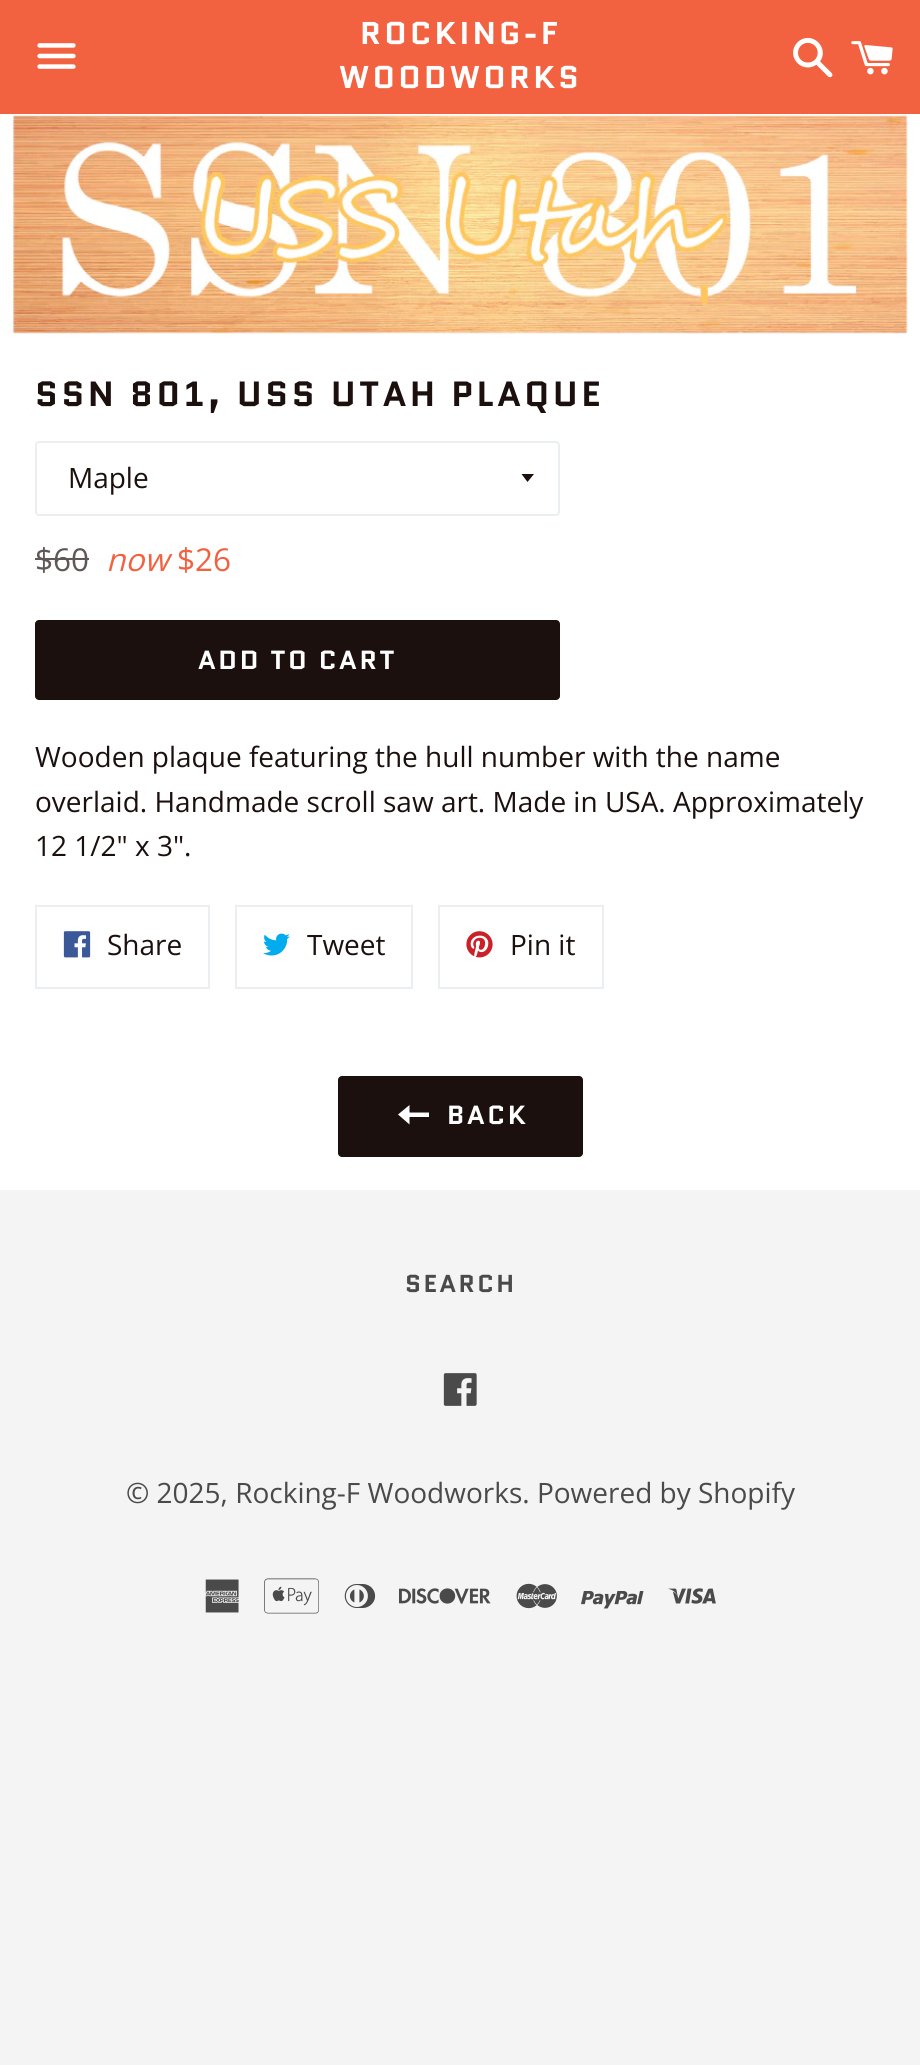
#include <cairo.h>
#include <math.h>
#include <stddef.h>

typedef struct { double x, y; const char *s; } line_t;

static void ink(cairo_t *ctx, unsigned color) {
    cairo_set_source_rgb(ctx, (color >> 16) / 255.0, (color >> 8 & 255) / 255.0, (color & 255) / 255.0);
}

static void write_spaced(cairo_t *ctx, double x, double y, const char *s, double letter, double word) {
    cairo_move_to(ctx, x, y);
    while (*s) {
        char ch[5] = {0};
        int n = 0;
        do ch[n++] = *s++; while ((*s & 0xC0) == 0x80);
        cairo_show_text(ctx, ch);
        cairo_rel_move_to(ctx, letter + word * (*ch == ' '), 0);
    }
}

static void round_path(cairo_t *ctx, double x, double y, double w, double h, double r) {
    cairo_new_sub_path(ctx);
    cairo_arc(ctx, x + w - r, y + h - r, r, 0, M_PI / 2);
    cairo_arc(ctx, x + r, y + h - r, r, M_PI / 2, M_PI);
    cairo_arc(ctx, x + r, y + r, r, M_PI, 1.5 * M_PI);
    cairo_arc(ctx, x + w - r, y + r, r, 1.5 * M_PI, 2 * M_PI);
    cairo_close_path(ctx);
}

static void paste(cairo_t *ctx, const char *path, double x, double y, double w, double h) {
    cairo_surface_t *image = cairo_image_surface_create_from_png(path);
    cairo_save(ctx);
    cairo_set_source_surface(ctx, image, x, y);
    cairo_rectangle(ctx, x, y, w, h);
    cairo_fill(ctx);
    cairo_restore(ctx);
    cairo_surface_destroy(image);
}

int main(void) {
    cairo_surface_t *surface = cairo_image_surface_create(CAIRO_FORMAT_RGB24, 920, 2065);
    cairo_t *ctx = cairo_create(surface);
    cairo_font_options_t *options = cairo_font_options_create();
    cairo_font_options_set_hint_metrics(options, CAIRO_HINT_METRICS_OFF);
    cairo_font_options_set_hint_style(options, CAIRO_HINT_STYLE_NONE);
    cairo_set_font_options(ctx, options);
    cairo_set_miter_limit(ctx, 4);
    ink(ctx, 0xF4F4F4);
    cairo_paint(ctx);
    ink(ctx, 0xFFFFFF);
    cairo_rectangle(ctx, 0, 114, 920, 1076);
    cairo_fill(ctx);
    ink(ctx, 0xF26241);
    cairo_rectangle(ctx, 0, 0, 920, 114);
    cairo_fill(ctx);
    paste(ctx, "media/1.png", 37, 43, 39, 26);
    cairo_select_font_face(ctx, "Quantico", CAIRO_FONT_SLANT_NORMAL, CAIRO_FONT_WEIGHT_BOLD);
    cairo_set_font_size(ctx, 31.5);
    ink(ctx, 0xFFFFFF);
    write_spaced(ctx, 360, 44, "ROCKING-F", 3.25, 0);
    write_spaced(ctx, 339, 88, "WOODWORKS", 3.25, 0);
    paste(ctx, "media/2.png", 793, 38, 40, 40);
    paste(ctx, "media/3.png", 851, 41, 42, 34);
    paste(ctx, "media/4.png", 8, 114, 901, 221);
    cairo_set_font_size(ctx, 35);
    ink(ctx, 0x1B100E);
    write_spaced(ctx, 35, 406, "SSN 801, USS UTAH PLAQUE", 3.5, 0);
    round_path(ctx, 36, 442, 523, 73, 3);
    ink(ctx, 0xECEFF1);
    cairo_stroke(ctx);
    ink(ctx, 0x1B100E);
    cairo_new_path(ctx);
    cairo_move_to(ctx, 521.5, 474);
    cairo_line_to(ctx, 527.5, 482);
    cairo_line_to(ctx, 534, 474);
    cairo_close_path(ctx);
    cairo_fill(ctx);
    cairo_select_font_face(ctx, "Open Sans", CAIRO_FONT_SLANT_NORMAL, CAIRO_FONT_WEIGHT_NORMAL);
    cairo_set_font_size(ctx, 28);
    cairo_move_to(ctx, 68, 488);
    cairo_show_text(ctx, "Maple");
    cairo_set_font_size(ctx, 31.5);
    ink(ctx, 0x5F5856);
    cairo_move_to(ctx, 35, 571);
    cairo_show_text(ctx, "$60");
    cairo_rectangle(ctx, 35, 558, 54, 2);
    cairo_fill(ctx);
    cairo_select_font_face(ctx, "Open Sans", CAIRO_FONT_SLANT_ITALIC, CAIRO_FONT_WEIGHT_NORMAL);
    ink(ctx, 0xF26241);
    cairo_move_to(ctx, 106, 571);
    cairo_show_text(ctx, "now");
    cairo_select_font_face(ctx, "Open Sans", CAIRO_FONT_SLANT_NORMAL, CAIRO_FONT_WEIGHT_NORMAL);
    cairo_move_to(ctx, 177, 571);
    cairo_show_text(ctx, "$26");
    ink(ctx, 0x1B100E);
    round_path(ctx, 35, 620, 525, 80, 4);
    cairo_fill(ctx);
    cairo_select_font_face(ctx, "Quantico", CAIRO_FONT_SLANT_NORMAL, CAIRO_FONT_WEIGHT_BOLD);
    cairo_set_font_size(ctx, 26.25);
    ink(ctx, 0xFFFFFF);
    write_spaced(ctx, 198, 669, "ADD TO CART", 2.6, 0);
    cairo_select_font_face(ctx, "Open Sans", CAIRO_FONT_SLANT_NORMAL, CAIRO_FONT_WEIGHT_NORMAL);
    cairo_set_font_size(ctx, 28);
    ink(ctx, 0x1B100E);
    {
        static const line_t items[] = {
            {35, 767, "Wooden plaque featuring the hull number with the name"},
            {35, 812, "overlaid. Handmade scroll saw art. Made in USA. Approximately"},
            {35, 856, "12 1/2\" x 3\"."},
        };
        for (size_t i = 0; i < sizeof items / sizeof *items; i++) {
            cairo_move_to(ctx, items[i].x, items[i].y);
            cairo_show_text(ctx, items[i].s);
        }
    }
    cairo_rectangle(ctx, 36, 906, 173, 82);
    ink(ctx, 0xECEFF1);
    cairo_stroke(ctx);
    paste(ctx, "media/5.png", 63, 931, 28, 27);
    ink(ctx, 0x1B100E);
    cairo_move_to(ctx, 107, 955);
    cairo_show_text(ctx, "Share");
    cairo_rectangle(ctx, 236, 906, 176, 82);
    ink(ctx, 0xECEFF1);
    cairo_stroke(ctx);
    paste(ctx, "media/6.png", 263, 933, 27, 23);
    ink(ctx, 0x1B100E);
    cairo_move_to(ctx, 307, 955);
    cairo_show_text(ctx, "Tweet");
    cairo_rectangle(ctx, 439, 906, 164, 82);
    ink(ctx, 0xECEFF1);
    cairo_stroke(ctx);
    paste(ctx, "media/7.png", 466, 931, 27, 27);
    ink(ctx, 0x1B100E);
    cairo_move_to(ctx, 510, 955);
    cairo_show_text(ctx, "Pin it");
    round_path(ctx, 338, 1076, 245, 81, 4);
    cairo_fill(ctx);
    ink(ctx, 0xFFFFFF);
    cairo_new_path(ctx);
    cairo_move_to(ctx, 409.5, 1112.5);
    cairo_line_to(ctx, 409.5, 1105);
    cairo_line_to(ctx, 398, 1114.5);
    cairo_line_to(ctx, 409.5, 1124.5);
    cairo_line_to(ctx, 409.5, 1117);
    cairo_line_to(ctx, 429, 1117);
    cairo_line_to(ctx, 429, 1112.5);
    cairo_close_path(ctx);
    cairo_fill(ctx);
    cairo_select_font_face(ctx, "Quantico", CAIRO_FONT_SLANT_NORMAL, CAIRO_FONT_WEIGHT_BOLD);
    cairo_set_font_size(ctx, 26.25);
    write_spaced(ctx, 447, 1124, "BACK", 2.6, 0);
    cairo_set_font_size(ctx, 24.5);
    ink(ctx, 0x4A4A4A);
    write_spaced(ctx, 405, 1292, "SEARCH", 2.5, 0);
    paste(ctx, "media/8.png", 443, 1373, 34, 33);
    cairo_select_font_face(ctx, "Open Sans", CAIRO_FONT_SLANT_NORMAL, CAIRO_FONT_WEIGHT_NORMAL);
    cairo_set_font_size(ctx, 28);
    cairo_move_to(ctx, 126, 1503);
    cairo_show_text(ctx, "© 2025, Rocking-F Woodworks. Powered by Shopify");
    paste(ctx, "media/9.png", 205, 1579, 34, 34);
    paste(ctx, "media/10.png", 264, 1578, 55, 36);
    paste(ctx, "media/11.png", 344, 1584, 32, 24);
    paste(ctx, "media/12.png", 399, 1588, 92, 16);
    paste(ctx, "media/13.png", 516, 1583, 41, 26);
    paste(ctx, "media/14.png", 581, 1591, 63, 18);
    paste(ctx, "media/15.png", 668, 1588, 48, 16);
    cairo_surface_write_to_png(surface, "image.png");
    cairo_font_options_destroy(options);
    cairo_destroy(ctx);
    cairo_surface_destroy(surface);
    return 0;
}
